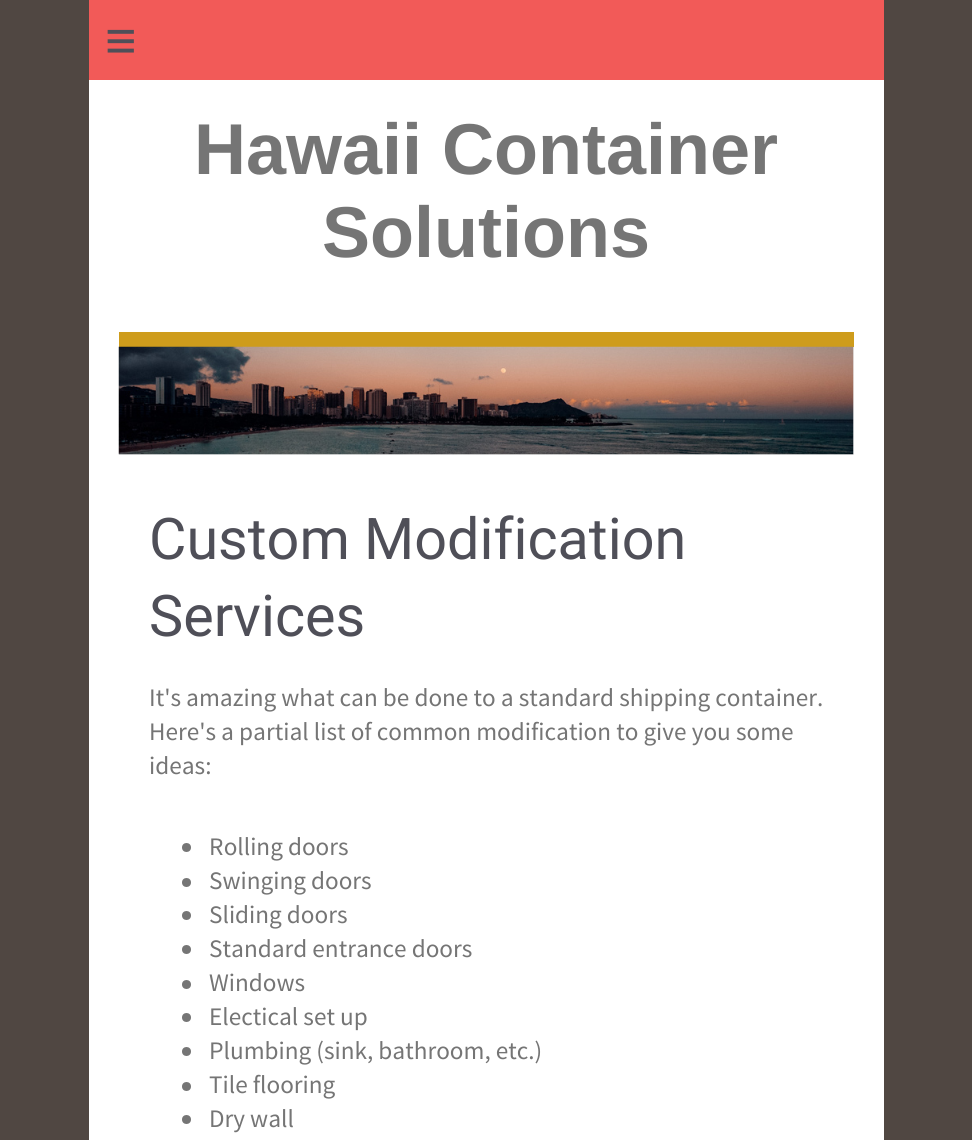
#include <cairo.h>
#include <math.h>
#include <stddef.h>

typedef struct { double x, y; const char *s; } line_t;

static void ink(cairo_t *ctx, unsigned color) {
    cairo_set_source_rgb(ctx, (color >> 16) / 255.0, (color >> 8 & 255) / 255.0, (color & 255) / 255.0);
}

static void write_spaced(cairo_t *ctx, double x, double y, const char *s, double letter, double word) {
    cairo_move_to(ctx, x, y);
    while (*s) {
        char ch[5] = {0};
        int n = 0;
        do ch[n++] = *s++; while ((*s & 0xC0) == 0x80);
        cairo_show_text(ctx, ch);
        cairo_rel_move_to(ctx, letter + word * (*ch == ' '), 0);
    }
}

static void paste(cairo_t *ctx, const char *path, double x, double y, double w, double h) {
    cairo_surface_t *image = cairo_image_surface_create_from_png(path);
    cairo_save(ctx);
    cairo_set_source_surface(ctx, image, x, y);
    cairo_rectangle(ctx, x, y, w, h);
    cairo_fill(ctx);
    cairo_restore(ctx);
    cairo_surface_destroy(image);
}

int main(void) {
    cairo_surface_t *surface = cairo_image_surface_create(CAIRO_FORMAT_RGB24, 972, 1140);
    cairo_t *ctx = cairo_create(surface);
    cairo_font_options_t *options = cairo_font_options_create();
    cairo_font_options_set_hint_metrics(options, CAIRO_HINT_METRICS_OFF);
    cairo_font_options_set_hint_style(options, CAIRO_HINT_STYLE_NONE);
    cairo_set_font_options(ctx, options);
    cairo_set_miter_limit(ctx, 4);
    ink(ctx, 0x504742);
    cairo_paint(ctx);
    ink(ctx, 0xF25A58);
    cairo_rectangle(ctx, 89, 0, 795, 80);
    cairo_fill(ctx);
    cairo_select_font_face(ctx, "Liberation Sans", CAIRO_FONT_SLANT_NORMAL, CAIRO_FONT_WEIGHT_NORMAL);
    cairo_set_font_size(ctx, 54);
    ink(ctx, 0x4F4F58);
    write_spaced(ctx, 105, 59, "≡", 16, 0);
    ink(ctx, 0xFFFFFF);
    cairo_rectangle(ctx, 89, 80, 795, 1060);
    cairo_fill(ctx);
    cairo_select_font_face(ctx, "Liberation Sans", CAIRO_FONT_SLANT_NORMAL, CAIRO_FONT_WEIGHT_BOLD);
    cairo_set_font_size(ctx, 72);
    ink(ctx, 0x757575);
    cairo_move_to(ctx, 194, 174);
    cairo_show_text(ctx, "Hawaii Container");
    cairo_move_to(ctx, 322, 257);
    cairo_show_text(ctx, "Solutions");
    ink(ctx, 0xCE9C1C);
    cairo_rectangle(ctx, 119, 332, 735, 15);
    cairo_fill(ctx);
    ink(ctx, 0xEEEEEE);
    cairo_rectangle(ctx, 119, 347, 735, 108);
    cairo_fill(ctx);
    paste(ctx, "media/1.png", 118, 346, 736, 109);
    cairo_select_font_face(ctx, "Roboto", CAIRO_FONT_SLANT_NORMAL, CAIRO_FONT_WEIGHT_NORMAL);
    cairo_set_font_size(ctx, 57.5);
    ink(ctx, 0x4F4F58);
    cairo_move_to(ctx, 149, 559);
    cairo_show_text(ctx, "Custom Modification");
    cairo_move_to(ctx, 149, 636);
    cairo_show_text(ctx, "Services");
    cairo_select_font_face(ctx, "Source Sans Pro", CAIRO_FONT_SLANT_NORMAL, CAIRO_FONT_WEIGHT_NORMAL);
    cairo_set_font_size(ctx, 25.2);
    ink(ctx, 0x757575);
    {
        static const line_t items[] = {
            {149, 706, "It's amazing what can be done to a standard shipping container."},
            {149, 740, "Here's a partial list of common modification to give you some"},
            {149, 774, "ideas:"},
        };
        for (size_t i = 0; i < sizeof items / sizeof *items; i++) {
            cairo_move_to(ctx, items[i].x, items[i].y);
            cairo_show_text(ctx, items[i].s);
        }
    }
    cairo_new_path(ctx);
    cairo_arc(ctx, 186.5, 847.5, 4.5, 0, 2 * M_PI);
    cairo_fill(ctx);
    cairo_move_to(ctx, 209, 855);
    cairo_show_text(ctx, "Rolling doors");
    cairo_new_path(ctx);
    cairo_arc(ctx, 186.5, 882.5, 4.5, 0, 2 * M_PI);
    cairo_fill(ctx);
    cairo_move_to(ctx, 209, 889);
    cairo_show_text(ctx, "Swinging doors");
    cairo_new_path(ctx);
    cairo_arc(ctx, 186.5, 915.5, 4.5, 0, 2 * M_PI);
    cairo_fill(ctx);
    cairo_move_to(ctx, 209, 923);
    cairo_show_text(ctx, "Sliding doors");
    cairo_new_path(ctx);
    cairo_arc(ctx, 186.5, 949.5, 4.5, 0, 2 * M_PI);
    cairo_fill(ctx);
    cairo_move_to(ctx, 209, 957);
    cairo_show_text(ctx, "Standard entrance doors");
    cairo_new_path(ctx);
    cairo_arc(ctx, 186.5, 984.5, 4.5, 0, 2 * M_PI);
    cairo_fill(ctx);
    cairo_move_to(ctx, 209, 991);
    cairo_show_text(ctx, "Windows");
    cairo_new_path(ctx);
    cairo_arc(ctx, 186.5, 1017.5, 4.5, 0, 2 * M_PI);
    cairo_fill(ctx);
    cairo_move_to(ctx, 209, 1025);
    cairo_show_text(ctx, "Electical set up");
    cairo_new_path(ctx);
    cairo_arc(ctx, 186.5, 1051.5, 4.5, 0, 2 * M_PI);
    cairo_fill(ctx);
    cairo_move_to(ctx, 209, 1059);
    cairo_show_text(ctx, "Plumbing (sink, bathroom, etc.)");
    cairo_new_path(ctx);
    cairo_arc(ctx, 186.5, 1086.5, 4.5, 0, 2 * M_PI);
    cairo_fill(ctx);
    cairo_move_to(ctx, 209, 1093);
    cairo_show_text(ctx, "Tile flooring");
    cairo_new_path(ctx);
    cairo_arc(ctx, 186.5, 1119.5, 4.5, 0, 2 * M_PI);
    cairo_fill(ctx);
    cairo_move_to(ctx, 209, 1127);
    cairo_show_text(ctx, "Dry wall");
    cairo_surface_write_to_png(surface, "image.png");
    cairo_font_options_destroy(options);
    cairo_destroy(ctx);
    cairo_surface_destroy(surface);
    return 0;
}
